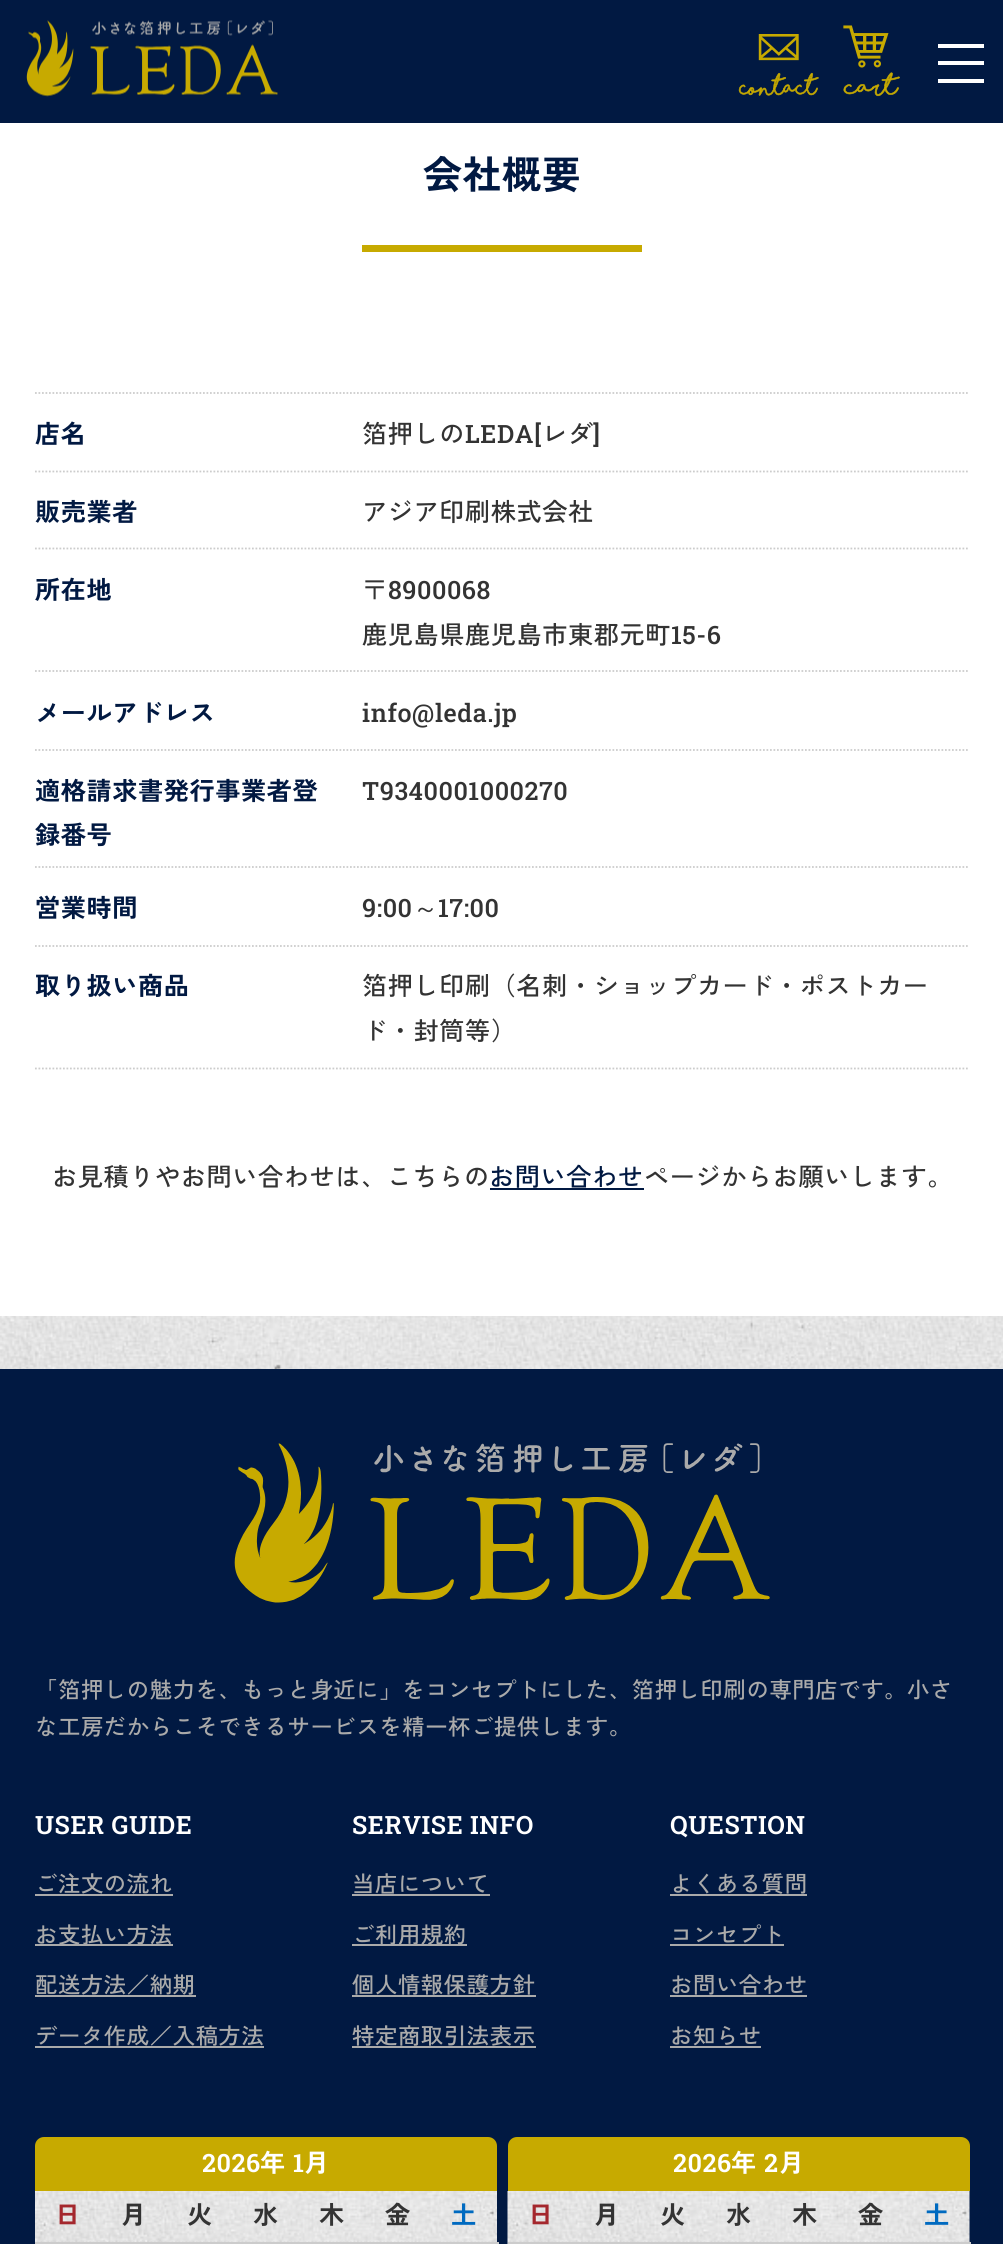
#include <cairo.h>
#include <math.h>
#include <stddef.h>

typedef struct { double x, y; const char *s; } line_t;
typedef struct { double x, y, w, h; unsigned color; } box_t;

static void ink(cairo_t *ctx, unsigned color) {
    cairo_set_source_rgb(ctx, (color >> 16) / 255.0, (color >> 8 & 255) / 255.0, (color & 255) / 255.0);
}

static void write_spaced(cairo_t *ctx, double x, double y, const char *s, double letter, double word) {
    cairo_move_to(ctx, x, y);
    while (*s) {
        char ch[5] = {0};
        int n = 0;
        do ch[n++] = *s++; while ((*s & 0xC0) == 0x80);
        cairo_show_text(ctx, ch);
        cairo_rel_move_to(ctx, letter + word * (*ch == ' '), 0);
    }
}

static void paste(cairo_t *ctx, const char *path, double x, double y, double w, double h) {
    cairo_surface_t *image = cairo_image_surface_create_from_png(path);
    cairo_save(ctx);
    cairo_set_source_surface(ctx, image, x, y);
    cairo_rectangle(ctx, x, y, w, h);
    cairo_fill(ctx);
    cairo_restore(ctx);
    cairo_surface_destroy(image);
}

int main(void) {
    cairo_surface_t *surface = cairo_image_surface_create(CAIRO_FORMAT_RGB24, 1003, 2244);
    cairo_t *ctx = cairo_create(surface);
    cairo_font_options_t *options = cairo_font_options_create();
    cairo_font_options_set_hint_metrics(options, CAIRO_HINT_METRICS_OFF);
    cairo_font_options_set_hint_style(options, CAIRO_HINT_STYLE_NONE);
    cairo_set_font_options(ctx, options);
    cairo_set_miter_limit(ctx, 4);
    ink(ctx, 0xFFFFFF);
    cairo_paint(ctx);
    paste(ctx, "media/1.png", 0, 1316, 1003, 53);
    ink(ctx, 0x011942);
    cairo_rectangle(ctx, 0, 0, 1003, 123);
    cairo_fill(ctx);
    paste(ctx, "media/2.png", 26, 20, 252, 77);
    paste(ctx, "media/3.png", 738, 34, 81, 62);
    paste(ctx, "media/4.png", 843, 25, 57, 72);
    {
        static const box_t items[] = {
            {938, 61, 46, 4, 0xFFFFFF},
            {938, 44, 46, 4, 0xFFFFFF},
            {938, 79, 46, 4, 0xFFFFFF},
        };
        for (size_t i = 0; i < sizeof items / sizeof *items; i++) {
            ink(ctx, items[i].color);
            cairo_rectangle(ctx, items[i].x, items[i].y, items[i].w, items[i].h);
            cairo_fill(ctx);
        }
    }
    cairo_select_font_face(ctx, "Zen Kaku Gothic New", CAIRO_FONT_SLANT_NORMAL, CAIRO_FONT_WEIGHT_BOLD);
    cairo_set_font_size(ctx, 39);
    ink(ctx, 0x011942);
    write_spaced(ctx, 423, 189, "会社概要", 0.55, 0);
    ink(ctx, 0xC7AA00);
    cairo_rectangle(ctx, 362, 245, 280, 7);
    cairo_fill(ctx);
    cairo_new_path(ctx);
    cairo_move_to(ctx, 35, 393);
    cairo_line_to(ctx, 969.5, 393);
    ink(ctx, 0xCCCCCC);
    cairo_set_line_width(ctx, 1.8);
    cairo_set_dash(ctx, (double[]){1.75, 1.75}, 2, 0);
    cairo_stroke(ctx);
    cairo_new_path(ctx);
    cairo_move_to(ctx, 35, 471.5);
    cairo_line_to(ctx, 969.5, 471.5);
    cairo_stroke(ctx);
    cairo_set_font_size(ctx, 25.2);
    ink(ctx, 0x011942);
    write_spaced(ctx, 35, 443, "店名", 0.55, 0);
    cairo_select_font_face(ctx, "Zen Kaku Gothic New Medium", CAIRO_FONT_SLANT_NORMAL, CAIRO_FONT_WEIGHT_NORMAL);
    ink(ctx, 0x333333);
    write_spaced(ctx, 362, 443, "箔押しの", 0.55, 0);
    cairo_select_font_face(ctx, "Roboto Slab Medium", CAIRO_FONT_SLANT_NORMAL, CAIRO_FONT_WEIGHT_NORMAL);
    write_spaced(ctx, 465, 443, "LEDA[", 0.55, 0);
    cairo_select_font_face(ctx, "Zen Kaku Gothic New Medium", CAIRO_FONT_SLANT_NORMAL, CAIRO_FONT_WEIGHT_NORMAL);
    write_spaced(ctx, 542, 443, "レダ", 0.55, 0);
    cairo_select_font_face(ctx, "Roboto Slab Medium", CAIRO_FONT_SLANT_NORMAL, CAIRO_FONT_WEIGHT_NORMAL);
    write_spaced(ctx, 593, 443, "]", 0.55, 0);
    cairo_new_path(ctx);
    cairo_move_to(ctx, 35, 548.5);
    cairo_line_to(ctx, 969.5, 548.5);
    ink(ctx, 0xCCCCCC);
    cairo_stroke(ctx);
    cairo_select_font_face(ctx, "Zen Kaku Gothic New", CAIRO_FONT_SLANT_NORMAL, CAIRO_FONT_WEIGHT_BOLD);
    ink(ctx, 0x011942);
    write_spaced(ctx, 35, 521, "販売業者", 0.55, 0);
    cairo_select_font_face(ctx, "Zen Kaku Gothic New Medium", CAIRO_FONT_SLANT_NORMAL, CAIRO_FONT_WEIGHT_NORMAL);
    ink(ctx, 0x333333);
    write_spaced(ctx, 362, 521, "アジア印刷株式会社", 0.55, 0);
    cairo_new_path(ctx);
    cairo_move_to(ctx, 35, 671);
    cairo_line_to(ctx, 969.5, 671);
    ink(ctx, 0xCCCCCC);
    cairo_stroke(ctx);
    cairo_select_font_face(ctx, "Zen Kaku Gothic New", CAIRO_FONT_SLANT_NORMAL, CAIRO_FONT_WEIGHT_BOLD);
    ink(ctx, 0x011942);
    write_spaced(ctx, 35, 599, "所在地", 0.55, 0);
    cairo_select_font_face(ctx, "Zen Kaku Gothic New Medium", CAIRO_FONT_SLANT_NORMAL, CAIRO_FONT_WEIGHT_NORMAL);
    ink(ctx, 0x333333);
    write_spaced(ctx, 362, 599, "〒", 0.55, 0);
    cairo_select_font_face(ctx, "Roboto Slab Medium", CAIRO_FONT_SLANT_NORMAL, CAIRO_FONT_WEIGHT_NORMAL);
    write_spaced(ctx, 388, 599, "8900068", 0.55, 0);
    cairo_select_font_face(ctx, "Zen Kaku Gothic New Medium", CAIRO_FONT_SLANT_NORMAL, CAIRO_FONT_WEIGHT_NORMAL);
    write_spaced(ctx, 362, 644, "鹿児島県鹿児島市東郡元町", 0.55, 0);
    cairo_select_font_face(ctx, "Roboto Slab Medium", CAIRO_FONT_SLANT_NORMAL, CAIRO_FONT_WEIGHT_NORMAL);
    write_spaced(ctx, 671, 644, "15-6", 0.55, 0);
    cairo_new_path(ctx);
    cairo_move_to(ctx, 35, 750);
    cairo_line_to(ctx, 969.5, 750);
    ink(ctx, 0xCCCCCC);
    cairo_stroke(ctx);
    cairo_select_font_face(ctx, "Zen Kaku Gothic New", CAIRO_FONT_SLANT_NORMAL, CAIRO_FONT_WEIGHT_BOLD);
    ink(ctx, 0x011942);
    write_spaced(ctx, 35, 722, "メールアドレス", 0.55, 0);
    cairo_select_font_face(ctx, "Roboto Slab Medium", CAIRO_FONT_SLANT_NORMAL, CAIRO_FONT_WEIGHT_NORMAL);
    ink(ctx, 0x333333);
    write_spaced(ctx, 362, 722, "info@leda.jp", 0.55, 0);
    cairo_new_path(ctx);
    cairo_move_to(ctx, 35, 867);
    cairo_line_to(ctx, 969.5, 867);
    ink(ctx, 0xCCCCCC);
    cairo_stroke(ctx);
    cairo_select_font_face(ctx, "Zen Kaku Gothic New", CAIRO_FONT_SLANT_NORMAL, CAIRO_FONT_WEIGHT_BOLD);
    ink(ctx, 0x011942);
    write_spaced(ctx, 35, 800, "適格請求書発行事業者登", 0.55, 0);
    write_spaced(ctx, 35, 844, "録番号", 0.55, 0);
    cairo_select_font_face(ctx, "Roboto Slab Medium", CAIRO_FONT_SLANT_NORMAL, CAIRO_FONT_WEIGHT_NORMAL);
    ink(ctx, 0x333333);
    write_spaced(ctx, 362, 800, "T9340001000270", 0.55, 0);
    cairo_new_path(ctx);
    cairo_move_to(ctx, 35, 946);
    cairo_line_to(ctx, 969.5, 946);
    ink(ctx, 0xCCCCCC);
    cairo_stroke(ctx);
    cairo_select_font_face(ctx, "Zen Kaku Gothic New", CAIRO_FONT_SLANT_NORMAL, CAIRO_FONT_WEIGHT_BOLD);
    ink(ctx, 0x011942);
    write_spaced(ctx, 35, 917, "営業時間", 0.55, 0);
    cairo_select_font_face(ctx, "Roboto Slab Medium", CAIRO_FONT_SLANT_NORMAL, CAIRO_FONT_WEIGHT_NORMAL);
    ink(ctx, 0x333333);
    write_spaced(ctx, 362, 917, "9:00", 0.55, 0);
    cairo_select_font_face(ctx, "WenQuanYi Zen Hei Medium", CAIRO_FONT_SLANT_NORMAL, CAIRO_FONT_WEIGHT_NORMAL);
    write_spaced(ctx, 413, 917, "～", 0.55, 0);
    cairo_select_font_face(ctx, "Roboto Slab Medium", CAIRO_FONT_SLANT_NORMAL, CAIRO_FONT_WEIGHT_NORMAL);
    write_spaced(ctx, 438, 917, "17:00", 0.55, 0);
    cairo_new_path(ctx);
    cairo_move_to(ctx, 35, 1068.5);
    cairo_line_to(ctx, 969.5, 1068.5);
    ink(ctx, 0xCCCCCC);
    cairo_stroke(ctx);
    cairo_select_font_face(ctx, "Zen Kaku Gothic New", CAIRO_FONT_SLANT_NORMAL, CAIRO_FONT_WEIGHT_BOLD);
    ink(ctx, 0x011942);
    write_spaced(ctx, 35, 995, "取り扱い商品", 0.55, 0);
    cairo_select_font_face(ctx, "Zen Kaku Gothic New Medium", CAIRO_FONT_SLANT_NORMAL, CAIRO_FONT_WEIGHT_NORMAL);
    ink(ctx, 0x333333);
    {
        static const line_t items[] = {
            {362, 995, "箔押し印刷（名刺・ショップカード・ポストカー"},
            {362, 1040, "ド・封筒等）"},
            {52, 1186, "お見積りやお問い合わせは、こちらの"},
        };
        for (size_t i = 0; i < sizeof items / sizeof *items; i++) {
            write_spaced(ctx, items[i].x, items[i].y, items[i].s, 0.55, 0);
        }
    }
    ink(ctx, 0x011942);
    write_spaced(ctx, 489, 1186, "お問い合わせ", 0.55, 0);
    cairo_rectangle(ctx, 490, 1188, 154, 2);
    cairo_fill(ctx);
    ink(ctx, 0x333333);
    write_spaced(ctx, 644, 1186, "ページからお願いします。", 0.55, 0);
    ink(ctx, 0x011942);
    cairo_rectangle(ctx, 0, 1369, 1003, 875);
    cairo_fill(ctx);
    paste(ctx, "media/5.png", 234, 1443, 536, 160);
    cairo_set_font_size(ctx, 22.4);
    ink(ctx, 0xAAAAAA);
    write_spaced(ctx, 35, 1698, "「箔押しの魅力を、もっと身近に」をコンセプトにした、箔押し印刷の専門店です。小さ", 0.55, 0);
    write_spaced(ctx, 35, 1735, "な工房だからこそできるサービスを精一杯ご提供します。", 0.55, 0);
    cairo_select_font_face(ctx, "Roboto Slab SemiBold", CAIRO_FONT_SLANT_NORMAL, CAIRO_FONT_WEIGHT_NORMAL);
    cairo_set_font_size(ctx, 25.2);
    ink(ctx, 0xFFFFFF);
    write_spaced(ctx, 35, 1834, "USER GUIDE", 0.55, 0);
    cairo_select_font_face(ctx, "Zen Kaku Gothic New Medium", CAIRO_FONT_SLANT_NORMAL, CAIRO_FONT_WEIGHT_NORMAL);
    cairo_set_font_size(ctx, 22.4);
    ink(ctx, 0xAAAAAA);
    write_spaced(ctx, 35, 1892, "ご注文の流れ", 0.55, 0);
    cairo_rectangle(ctx, 35, 1894, 138, 2);
    cairo_fill(ctx);
    cairo_rectangle(ctx, 35, 1944, 138, 2);
    cairo_fill(ctx);
    write_spaced(ctx, 35, 1943, "お支払い方法", 0.55, 0);
    write_spaced(ctx, 35, 1993, "配送方法／納期", 0.55, 0);
    cairo_rectangle(ctx, 35, 1995, 161, 2);
    cairo_fill(ctx);
    write_spaced(ctx, 35, 2044, "データ作成／入稿方法", 0.55, 0);
    cairo_rectangle(ctx, 35, 2046, 229, 2);
    cairo_fill(ctx);
    cairo_select_font_face(ctx, "Roboto Slab SemiBold", CAIRO_FONT_SLANT_NORMAL, CAIRO_FONT_WEIGHT_NORMAL);
    cairo_set_font_size(ctx, 25.2);
    ink(ctx, 0xFFFFFF);
    write_spaced(ctx, 352, 1834, "SERVISE INFO", 0.55, 0);
    cairo_select_font_face(ctx, "Zen Kaku Gothic New Medium", CAIRO_FONT_SLANT_NORMAL, CAIRO_FONT_WEIGHT_NORMAL);
    cairo_set_font_size(ctx, 22.4);
    ink(ctx, 0xAAAAAA);
    write_spaced(ctx, 352, 1892, "当店について", 0.55, 0);
    cairo_rectangle(ctx, 352, 1894, 138, 2);
    cairo_fill(ctx);
    cairo_rectangle(ctx, 352, 1944, 115, 2);
    cairo_fill(ctx);
    write_spaced(ctx, 352, 1943, "ご利用規約", 0.55, 0);
    write_spaced(ctx, 352, 1993, "個人情報保護方針", 0.55, 0);
    cairo_rectangle(ctx, 352, 1995, 184, 2);
    cairo_fill(ctx);
    write_spaced(ctx, 352, 2044, "特定商取引法表示", 0.55, 0);
    cairo_rectangle(ctx, 352, 2046, 184, 2);
    cairo_fill(ctx);
    cairo_select_font_face(ctx, "Roboto Slab SemiBold", CAIRO_FONT_SLANT_NORMAL, CAIRO_FONT_WEIGHT_NORMAL);
    cairo_set_font_size(ctx, 25.2);
    ink(ctx, 0xFFFFFF);
    write_spaced(ctx, 670, 1834, "QUESTION", 0.55, 0);
    cairo_select_font_face(ctx, "Zen Kaku Gothic New Medium", CAIRO_FONT_SLANT_NORMAL, CAIRO_FONT_WEIGHT_NORMAL);
    cairo_set_font_size(ctx, 22.4);
    ink(ctx, 0xAAAAAA);
    write_spaced(ctx, 670, 1892, "よくある質問", 0.55, 0);
    cairo_rectangle(ctx, 670, 1894, 137, 2);
    cairo_fill(ctx);
    write_spaced(ctx, 670, 1943, "コンセプト", 0.55, 0);
    cairo_rectangle(ctx, 670, 1944, 114, 2);
    cairo_fill(ctx);
    write_spaced(ctx, 670, 1993, "お問い合わせ", 0.55, 0);
    cairo_rectangle(ctx, 670, 1995, 137, 2);
    cairo_fill(ctx);
    write_spaced(ctx, 670, 2044, "お知らせ", 0.55, 0);
    cairo_rectangle(ctx, 670, 2046, 91, 2);
    cairo_fill(ctx);
    paste(ctx, "media/6.png", 35, 2191, 462, 51);
    ink(ctx, 0xC7AA00);
    cairo_new_path(ctx);
    cairo_move_to(ctx, 44, 2137);
    cairo_line_to(ctx, 488, 2137);
    cairo_curve_to(ctx, 493, 2137, 497, 2141, 497, 2146);
    cairo_line_to(ctx, 497, 2191);
    cairo_line_to(ctx, 35, 2191);
    cairo_line_to(ctx, 35, 2146);
    cairo_curve_to(ctx, 35, 2141, 39, 2137, 44, 2137);
    cairo_close_path(ctx);
    cairo_fill(ctx);
    cairo_select_font_face(ctx, "Roboto Slab SemiBold", CAIRO_FONT_SLANT_NORMAL, CAIRO_FONT_WEIGHT_NORMAL);
    cairo_set_font_size(ctx, 25.2);
    ink(ctx, 0xFFFFFF);
    write_spaced(ctx, 202, 2172, "2026", 0.55, 0);
    cairo_select_font_face(ctx, "Zen Kaku Gothic New", CAIRO_FONT_SLANT_NORMAL, CAIRO_FONT_WEIGHT_BOLD);
    write_spaced(ctx, 260, 2172, "年", 0.55, 0);
    cairo_select_font_face(ctx, "Roboto Slab SemiBold", CAIRO_FONT_SLANT_NORMAL, CAIRO_FONT_WEIGHT_NORMAL);
    write_spaced(ctx, 293, 2172, "1", 0.55, 0);
    cairo_select_font_face(ctx, "Zen Kaku Gothic New", CAIRO_FONT_SLANT_NORMAL, CAIRO_FONT_WEIGHT_BOLD);
    write_spaced(ctx, 304, 2172, "月", 0.55, 0);
    ink(ctx, 0xA4272D);
    write_spaced(ctx, 55, 2224, "日", 0.55, 0);
    ink(ctx, 0x333333);
    {
        static const line_t items[] = {
            {121, 2224, "月"},
            {187, 2224, "火"},
            {253, 2224, "水"},
            {319, 2224, "木"},
            {385, 2224, "金"},
        };
        for (size_t i = 0; i < sizeof items / sizeof *items; i++) {
            write_spaced(ctx, items[i].x, items[i].y, items[i].s, 0.55, 0);
        }
    }
    ink(ctx, 0xCCCCCC);
    cairo_rectangle(ctx, 35, 2242, 464, 2);
    cairo_fill(ctx);
    ink(ctx, 0x006AC0);
    write_spaced(ctx, 451, 2224, "土", 0.55, 0);
    paste(ctx, "media/7.png", 507, 2191, 463, 53);
    ink(ctx, 0xC7AA00);
    cairo_new_path(ctx);
    cairo_move_to(ctx, 517, 2137);
    cairo_line_to(ctx, 961, 2137);
    cairo_curve_to(ctx, 966, 2137, 970, 2141, 970, 2146);
    cairo_line_to(ctx, 970, 2191);
    cairo_line_to(ctx, 508, 2191);
    cairo_line_to(ctx, 508, 2146);
    cairo_curve_to(ctx, 508, 2141, 512, 2137, 517, 2137);
    cairo_close_path(ctx);
    cairo_fill(ctx);
    cairo_select_font_face(ctx, "Roboto Slab SemiBold", CAIRO_FONT_SLANT_NORMAL, CAIRO_FONT_WEIGHT_NORMAL);
    ink(ctx, 0xFFFFFF);
    write_spaced(ctx, 673, 2172, "2026", 0.55, 0);
    cairo_select_font_face(ctx, "Zen Kaku Gothic New", CAIRO_FONT_SLANT_NORMAL, CAIRO_FONT_WEIGHT_BOLD);
    write_spaced(ctx, 731, 2172, "年", 0.55, 0);
    cairo_select_font_face(ctx, "Roboto Slab SemiBold", CAIRO_FONT_SLANT_NORMAL, CAIRO_FONT_WEIGHT_NORMAL);
    write_spaced(ctx, 764, 2172, "2", 0.55, 0);
    cairo_select_font_face(ctx, "Zen Kaku Gothic New", CAIRO_FONT_SLANT_NORMAL, CAIRO_FONT_WEIGHT_BOLD);
    write_spaced(ctx, 779, 2172, "月", 0.55, 0);
    ink(ctx, 0xA4272D);
    write_spaced(ctx, 528, 2224, "日", 0.55, 0);
    ink(ctx, 0x333333);
    {
        static const line_t items[] = {
            {594, 2224, "月"},
            {660, 2224, "火"},
            {726, 2224, "水"},
            {792, 2224, "木"},
            {858, 2224, "金"},
        };
        for (size_t i = 0; i < sizeof items / sizeof *items; i++) {
            write_spaced(ctx, items[i].x, items[i].y, items[i].s, 0.55, 0);
        }
    }
    ink(ctx, 0xCCCCCC);
    cairo_rectangle(ctx, 508, 2242, 463, 2);
    cairo_fill(ctx);
    ink(ctx, 0x006AC0);
    write_spaced(ctx, 924, 2224, "土", 0.55, 0);
    cairo_surface_write_to_png(surface, "image.png");
    cairo_font_options_destroy(options);
    cairo_destroy(ctx);
    cairo_surface_destroy(surface);
    return 0;
}
